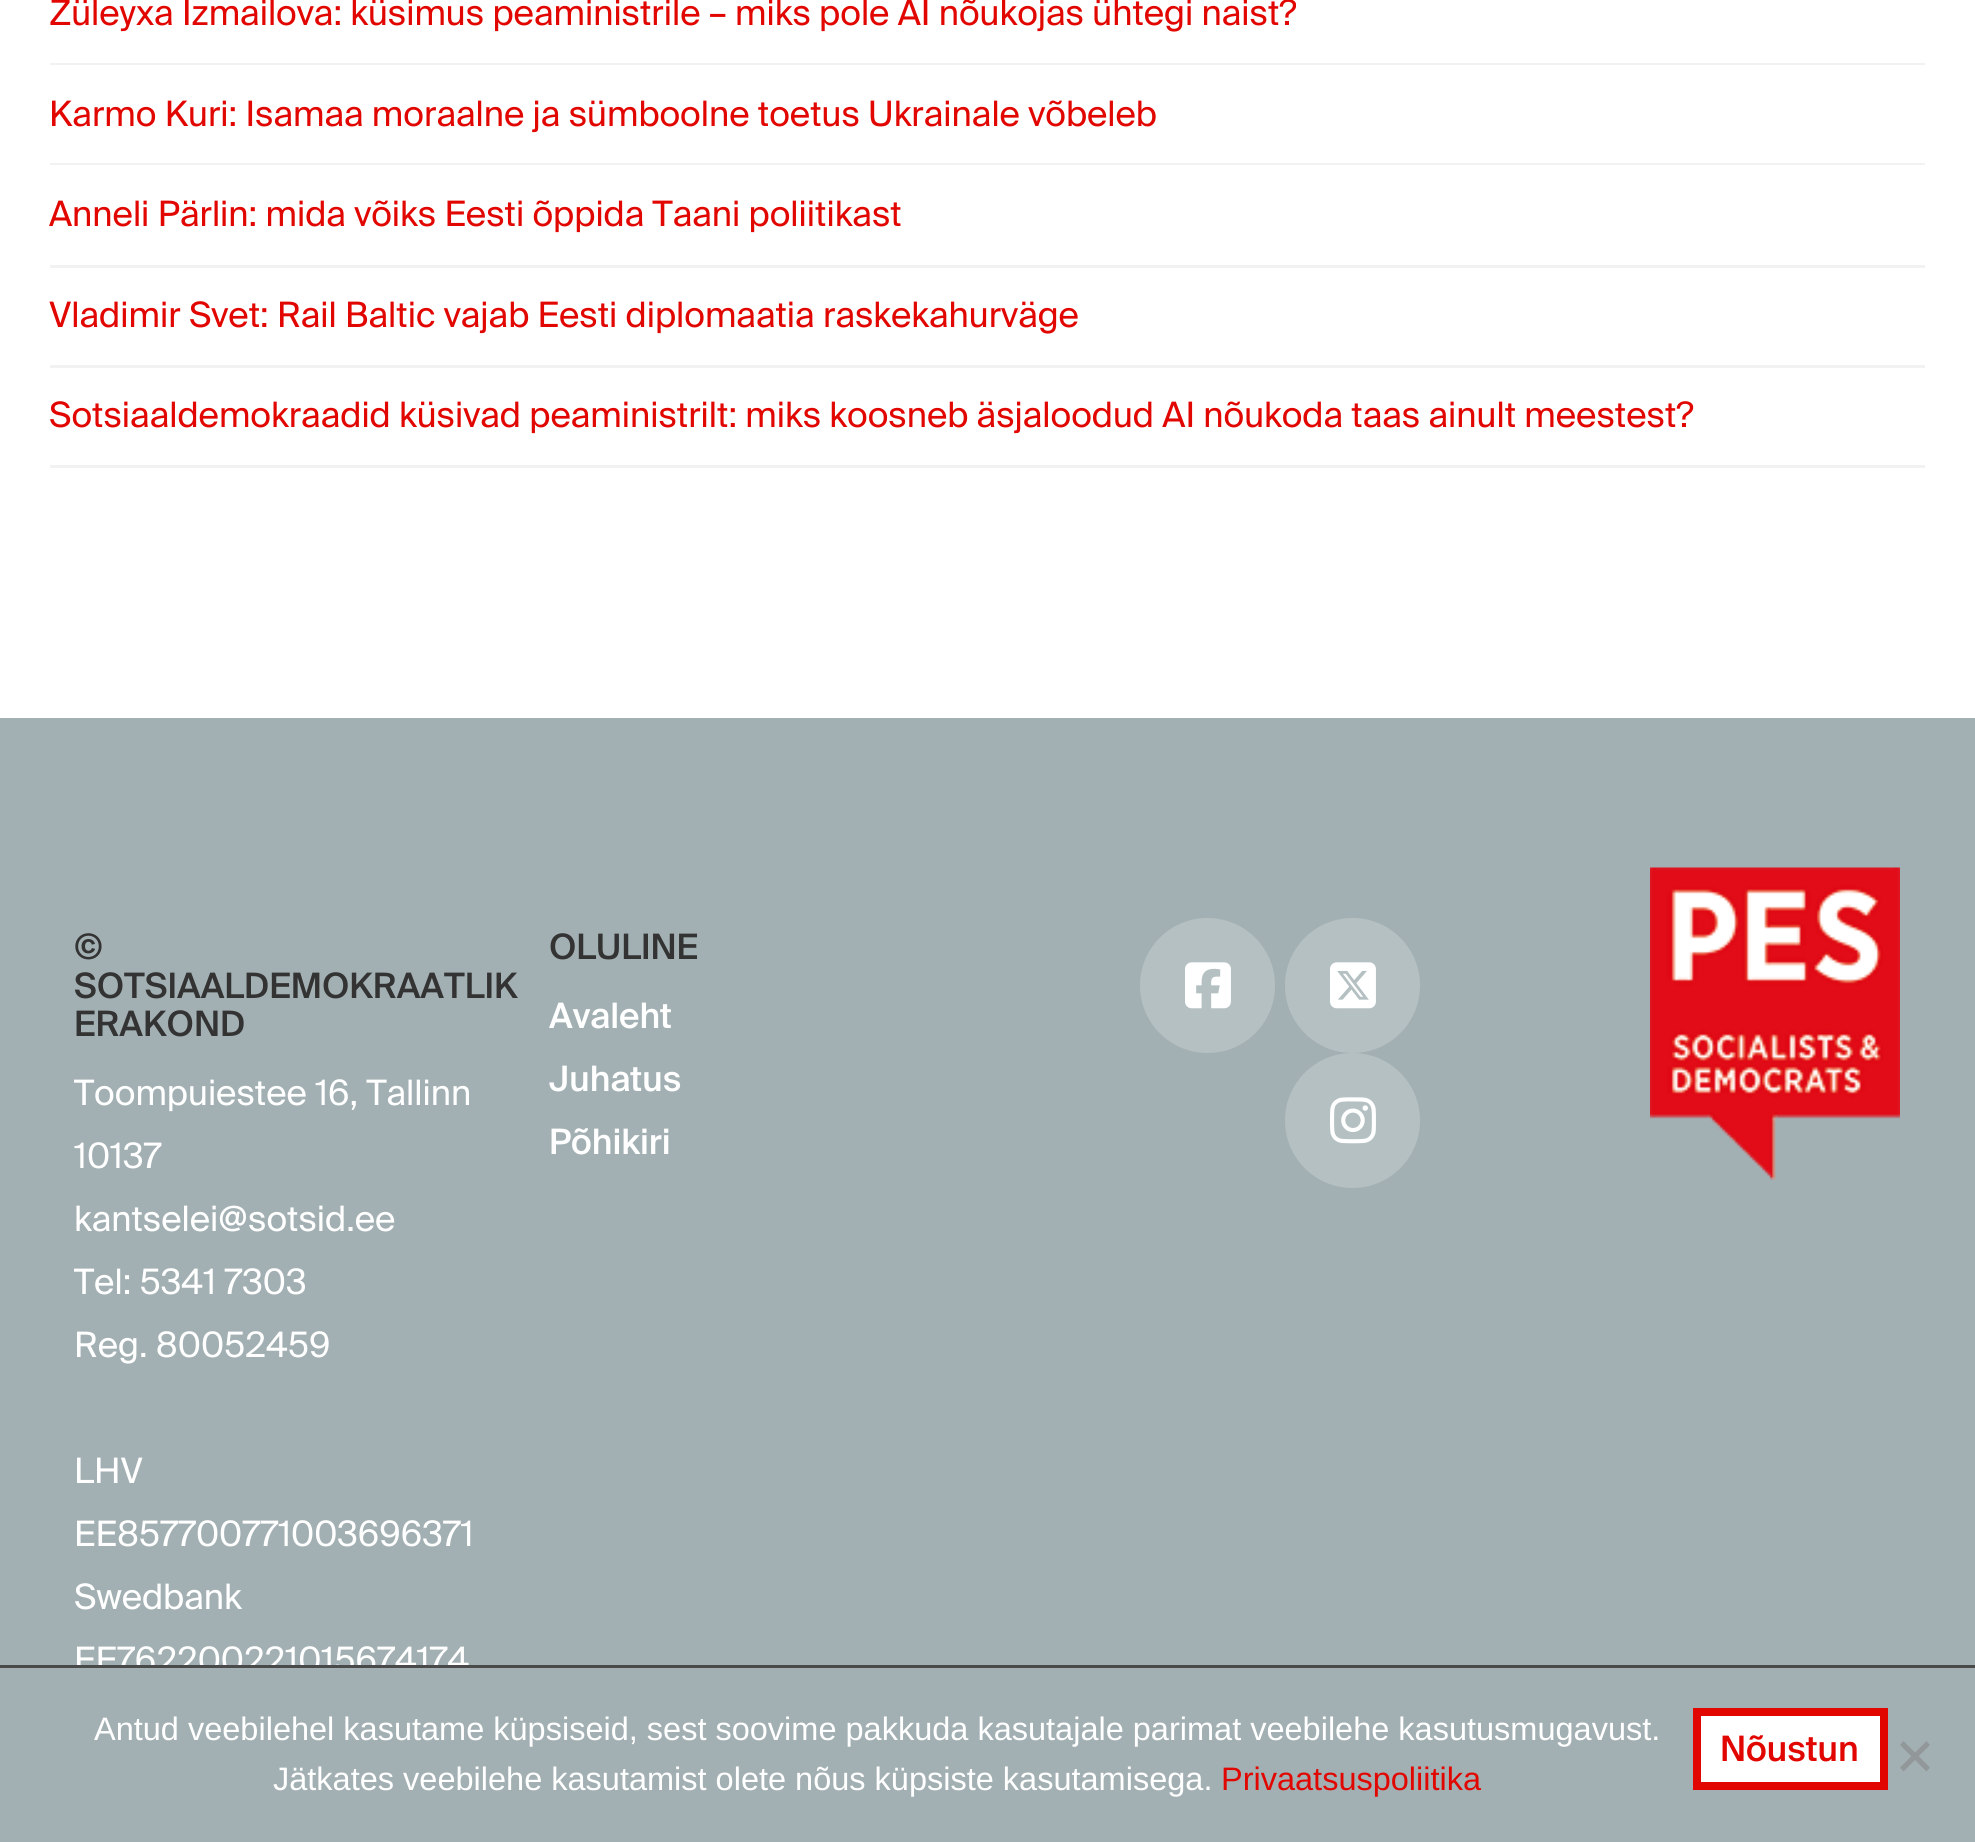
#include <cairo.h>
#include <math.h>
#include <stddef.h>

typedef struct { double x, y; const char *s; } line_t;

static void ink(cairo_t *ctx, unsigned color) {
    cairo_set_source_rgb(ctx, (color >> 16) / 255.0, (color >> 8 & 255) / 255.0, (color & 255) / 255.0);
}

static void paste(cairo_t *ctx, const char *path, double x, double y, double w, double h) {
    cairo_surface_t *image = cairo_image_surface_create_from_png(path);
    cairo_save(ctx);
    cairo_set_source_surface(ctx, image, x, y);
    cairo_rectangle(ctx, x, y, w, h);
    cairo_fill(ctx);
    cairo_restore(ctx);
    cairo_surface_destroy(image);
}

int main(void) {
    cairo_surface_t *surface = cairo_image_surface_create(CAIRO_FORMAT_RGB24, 1975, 1842);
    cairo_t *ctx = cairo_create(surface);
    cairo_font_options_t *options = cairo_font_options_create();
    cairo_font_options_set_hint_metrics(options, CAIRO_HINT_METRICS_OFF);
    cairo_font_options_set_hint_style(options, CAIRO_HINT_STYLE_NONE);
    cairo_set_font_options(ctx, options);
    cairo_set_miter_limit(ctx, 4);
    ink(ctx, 0xFFFFFF);
    cairo_paint(ctx);
    ink(ctx, 0xF2F2F2);
    cairo_rectangle(ctx, 50, 63, 1875, 2);
    cairo_fill(ctx);
    cairo_select_font_face(ctx, "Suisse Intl", CAIRO_FONT_SLANT_NORMAL, CAIRO_FONT_WEIGHT_NORMAL);
    cairo_set_font_size(ctx, 35);
    ink(ctx, 0xE10600);
    cairo_move_to(ctx, 49, 25);
    cairo_show_text(ctx, "Züleyxa Izmailova: küsimus peaministrile – miks pole AI nõukojas ühtegi naist?");
    ink(ctx, 0xF2F2F2);
    cairo_rectangle(ctx, 50, 163, 1875, 2);
    cairo_fill(ctx);
    ink(ctx, 0xE10600);
    cairo_move_to(ctx, 49, 126);
    cairo_show_text(ctx, "Karmo Kuri: Isamaa moraalne ja sümboolne toetus Ukrainale võbeleb");
    ink(ctx, 0xF2F2F2);
    cairo_rectangle(ctx, 50, 265, 1875, 3);
    cairo_fill(ctx);
    ink(ctx, 0xE10600);
    cairo_move_to(ctx, 49, 226);
    cairo_show_text(ctx, "Anneli Pärlin: mida võiks Eesti õppida Taani poliitikast");
    ink(ctx, 0xF2F2F2);
    cairo_rectangle(ctx, 50, 365, 1875, 3);
    cairo_fill(ctx);
    ink(ctx, 0xE10600);
    cairo_move_to(ctx, 49, 327);
    cairo_show_text(ctx, "Vladimir Svet: Rail Baltic vajab Eesti diplomaatia raskekahurväge");
    ink(ctx, 0xF2F2F2);
    cairo_rectangle(ctx, 50, 465, 1875, 3);
    cairo_fill(ctx);
    ink(ctx, 0xE10600);
    cairo_move_to(ctx, 49, 427);
    cairo_show_text(ctx, "Sotsiaaldemokraadid küsivad peaministrilt: miks koosneb äsjaloodud AI nõukoda taas ainult meestest?");
    ink(ctx, 0xA3B0B3);
    cairo_rectangle(ctx, 0, 718, 1975, 947);
    cairo_fill(ctx);
    cairo_select_font_face(ctx, "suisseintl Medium", CAIRO_FONT_SLANT_NORMAL, CAIRO_FONT_WEIGHT_NORMAL);
    ink(ctx, 0x333333);
    {
        static const line_t items[] = {
            {74, 959, "©"},
            {74, 998, "SOTSIAALDEMOKRAATLIK"},
            {74, 1036, "ERAKOND"},
        };
        for (size_t i = 0; i < sizeof items / sizeof *items; i++) {
            cairo_move_to(ctx, items[i].x, items[i].y);
            cairo_show_text(ctx, items[i].s);
        }
    }
    cairo_select_font_face(ctx, "Suisse Intl", CAIRO_FONT_SLANT_NORMAL, CAIRO_FONT_WEIGHT_NORMAL);
    ink(ctx, 0xFFFFFF);
    {
        static const line_t items[] = {
            {74, 1105, "Toompuiestee 16, Tallinn"},
            {74, 1168, "10137"},
            {74, 1231, "kantselei@sotsid.ee"},
            {74, 1294, "Tel: 5341 7303"},
            {74, 1357, "Reg. 80052459"},
            {74, 1483, "LHV"},
            {74, 1546, "EE857700771003696371"},
            {74, 1609, "Swedbank"},
            {74, 1672, "EE762200221015674174"},
        };
        for (size_t i = 0; i < sizeof items / sizeof *items; i++) {
            cairo_move_to(ctx, items[i].x, items[i].y);
            cairo_show_text(ctx, items[i].s);
        }
    }
    cairo_select_font_face(ctx, "suisseintl Medium", CAIRO_FONT_SLANT_NORMAL, CAIRO_FONT_WEIGHT_NORMAL);
    ink(ctx, 0x333333);
    cairo_move_to(ctx, 549, 959);
    cairo_show_text(ctx, "OLULINE");
    ink(ctx, 0xFFFFFF);
    {
        static const line_t items[] = {
            {549, 1028, "Avaleht"},
            {549, 1091, "Juhatus"},
            {549, 1154, "Põhikiri"},
        };
        for (size_t i = 0; i < sizeof items / sizeof *items; i++) {
            cairo_move_to(ctx, items[i].x, items[i].y);
            cairo_show_text(ctx, items[i].s);
        }
    }
    ink(ctx, 0xB5C0C2);
    cairo_new_path(ctx);
    cairo_arc(ctx, 1207.5, 985.5, 67.5, 0, 2 * M_PI);
    cairo_fill(ctx);
    paste(ctx, "media/1.png", 1185, 962, 46, 47);
    cairo_arc(ctx, 1352.5, 985.5, 67.5, 0, 2 * M_PI);
    cairo_fill(ctx);
    paste(ctx, "media/2.png", 1330, 962, 46, 47);
    cairo_arc(ctx, 1352.5, 1120.5, 67.5, 0, 2 * M_PI);
    cairo_fill(ctx);
    paste(ctx, "media/3.png", 1330, 1097, 46, 47);
    paste(ctx, "media/4.png", 1650, 867, 250, 313);
    ink(ctx, 0xA3B0B3);
    cairo_rectangle(ctx, 0, 1668, 1975, 174);
    cairo_fill(ctx);
    ink(ctx, 0x4A4A4A);
    cairo_rectangle(ctx, 0, 1665, 1975, 3);
    cairo_fill(ctx);
    cairo_select_font_face(ctx, "Liberation Sans", CAIRO_FONT_SLANT_NORMAL, CAIRO_FONT_WEIGHT_NORMAL);
    cairo_set_font_size(ctx, 32.5);
    ink(ctx, 0xFFFFFF);
    cairo_move_to(ctx, 94, 1740);
    cairo_show_text(ctx, "Antud veebilehel kasutame küpsiseid, sest soovime pakkuda kasutajale parimat veebilehe kasutusmugavust.");
    cairo_move_to(ctx, 273, 1790);
    cairo_show_text(ctx, "Jätkates veebilehe kasutamist olete nõus küpsiste kasutamisega.");
    ink(ctx, 0xE10600);
    cairo_move_to(ctx, 1221, 1790);
    cairo_show_text(ctx, "Privaatsuspoliitika");
    ink(ctx, 0xFFFFFF);
    cairo_rectangle(ctx, 1697, 1712, 187, 74);
    cairo_fill_preserve(ctx);
    ink(ctx, 0xE10600);
    cairo_set_line_width(ctx, 8);
    cairo_stroke(ctx);
    cairo_select_font_face(ctx, "suisseintl Medium", CAIRO_FONT_SLANT_NORMAL, CAIRO_FONT_WEIGHT_NORMAL);
    cairo_set_font_size(ctx, 35);
    cairo_move_to(ctx, 1720, 1761);
    cairo_show_text(ctx, "Nõustun");
    ink(ctx, 0x92989A);
    cairo_new_path(ctx);
    cairo_move_to(ctx, 1926.5, 1741);
    cairo_line_to(ctx, 1930, 1745);
    cairo_line_to(ctx, 1903.5, 1771.5);
    cairo_line_to(ctx, 1900, 1767.5);
    cairo_close_path(ctx);
    cairo_fill(ctx);
    cairo_new_path(ctx);
    cairo_move_to(ctx, 1900, 1745);
    cairo_line_to(ctx, 1903.5, 1741);
    cairo_line_to(ctx, 1930, 1767.5);
    cairo_line_to(ctx, 1926.5, 1771.5);
    cairo_close_path(ctx);
    cairo_fill(ctx);
    cairo_surface_write_to_png(surface, "image.png");
    cairo_font_options_destroy(options);
    cairo_destroy(ctx);
    cairo_surface_destroy(surface);
    return 0;
}
